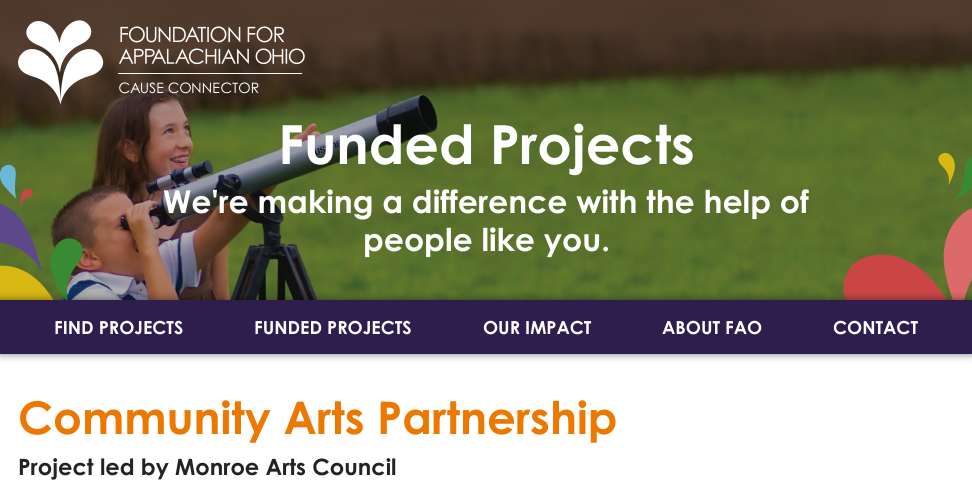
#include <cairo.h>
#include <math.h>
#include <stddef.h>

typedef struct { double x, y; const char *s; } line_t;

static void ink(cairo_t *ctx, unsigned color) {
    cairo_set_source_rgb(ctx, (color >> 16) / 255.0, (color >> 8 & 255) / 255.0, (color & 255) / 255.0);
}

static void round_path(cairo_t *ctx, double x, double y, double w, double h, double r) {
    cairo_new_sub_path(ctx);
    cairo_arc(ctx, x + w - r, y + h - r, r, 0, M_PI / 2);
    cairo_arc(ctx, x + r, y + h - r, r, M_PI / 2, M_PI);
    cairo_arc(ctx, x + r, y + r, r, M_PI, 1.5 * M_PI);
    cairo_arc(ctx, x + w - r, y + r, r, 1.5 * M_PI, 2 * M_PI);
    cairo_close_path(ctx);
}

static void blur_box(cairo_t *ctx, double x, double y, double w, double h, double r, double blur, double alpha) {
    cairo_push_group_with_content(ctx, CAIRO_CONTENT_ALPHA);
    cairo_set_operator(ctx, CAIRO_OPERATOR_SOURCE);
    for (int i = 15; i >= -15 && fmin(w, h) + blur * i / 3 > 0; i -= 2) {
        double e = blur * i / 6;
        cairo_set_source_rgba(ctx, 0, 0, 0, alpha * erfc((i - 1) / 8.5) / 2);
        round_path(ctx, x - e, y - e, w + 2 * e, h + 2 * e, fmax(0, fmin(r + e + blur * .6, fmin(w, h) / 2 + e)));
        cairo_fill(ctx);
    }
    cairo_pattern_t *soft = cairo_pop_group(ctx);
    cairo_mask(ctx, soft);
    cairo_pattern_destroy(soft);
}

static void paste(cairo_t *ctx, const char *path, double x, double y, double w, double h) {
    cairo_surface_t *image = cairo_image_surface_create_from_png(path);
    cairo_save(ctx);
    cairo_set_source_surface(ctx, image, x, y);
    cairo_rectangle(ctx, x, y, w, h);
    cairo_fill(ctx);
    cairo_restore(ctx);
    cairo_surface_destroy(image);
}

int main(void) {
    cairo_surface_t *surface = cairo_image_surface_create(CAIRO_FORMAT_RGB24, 972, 485);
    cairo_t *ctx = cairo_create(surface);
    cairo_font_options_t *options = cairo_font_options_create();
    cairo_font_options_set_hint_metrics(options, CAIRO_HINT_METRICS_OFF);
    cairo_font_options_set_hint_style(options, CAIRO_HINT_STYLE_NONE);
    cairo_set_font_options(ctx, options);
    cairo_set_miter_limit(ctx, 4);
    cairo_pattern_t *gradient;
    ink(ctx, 0xFFFFFF);
    cairo_paint(ctx);
    paste(ctx, "media/2.png", 0, 0, 972, 300);
    gradient = cairo_pattern_create_linear(486, 0, 486, 126);
    cairo_pattern_add_color_stop_rgba(gradient, 0, 0, 0, 0, 0.3);
    cairo_pattern_add_color_stop_rgba(gradient, 1, 0, 0, 0, 0);
    cairo_set_source(ctx, gradient);
    cairo_pattern_destroy(gradient);
    cairo_rectangle(ctx, 0, 0, 972, 117);
    cairo_fill(ctx);
    paste(ctx, "media/1.png", 18, 20, 287, 85);
    cairo_select_font_face(ctx, "Century Gothic", CAIRO_FONT_SLANT_NORMAL, CAIRO_FONT_WEIGHT_BOLD);
    cairo_set_font_size(ctx, 54);
    ink(ctx, 0xFFFFFF);
    cairo_move_to(ctx, 278, 164);
    cairo_show_text(ctx, "Funded Projects");
    cairo_set_font_size(ctx, 31.5);
    cairo_move_to(ctx, 163, 213);
    cairo_show_text(ctx, "We're making a difference with the help of");
    cairo_move_to(ctx, 363, 251);
    cairo_show_text(ctx, "people like you.");
    paste(ctx, "media/3.png", 843, 152, 129, 148);
    paste(ctx, "media/4.png", 0, 164, 83, 136);
    ink(ctx, 0x000000);
    blur_box(ctx, 0, 300, 972, 54, 0, 4.5, 0.5);
    ink(ctx, 0x2D1E4E);
    cairo_rectangle(ctx, 0, 300, 972, 54);
    cairo_fill(ctx);
    cairo_set_font_size(ctx, 18);
    ink(ctx, 0xFFFFFF);
    {
        static const line_t items[] = {
            {54, 334, "FIND PROJECTS"},
            {254, 334, "FUNDED PROJECTS"},
            {483, 334, "OUR IMPACT"},
            {662, 334, "ABOUT FAO"},
            {833, 334, "CONTACT"},
        };
        for (size_t i = 0; i < sizeof items / sizeof *items; i++) {
            cairo_move_to(ctx, items[i].x, items[i].y);
            cairo_show_text(ctx, items[i].s);
        }
    }
    cairo_set_font_size(ctx, 45);
    ink(ctx, 0xED7800);
    cairo_move_to(ctx, 18, 434);
    cairo_show_text(ctx, "Community Arts Partnership");
    cairo_set_font_size(ctx, 22.5);
    ink(ctx, 0x242224);
    cairo_move_to(ctx, 18, 475);
    cairo_show_text(ctx, "Project led by Monroe Arts Council");
    cairo_surface_write_to_png(surface, "image.png");
    cairo_font_options_destroy(options);
    cairo_destroy(ctx);
    cairo_surface_destroy(surface);
    return 0;
}
